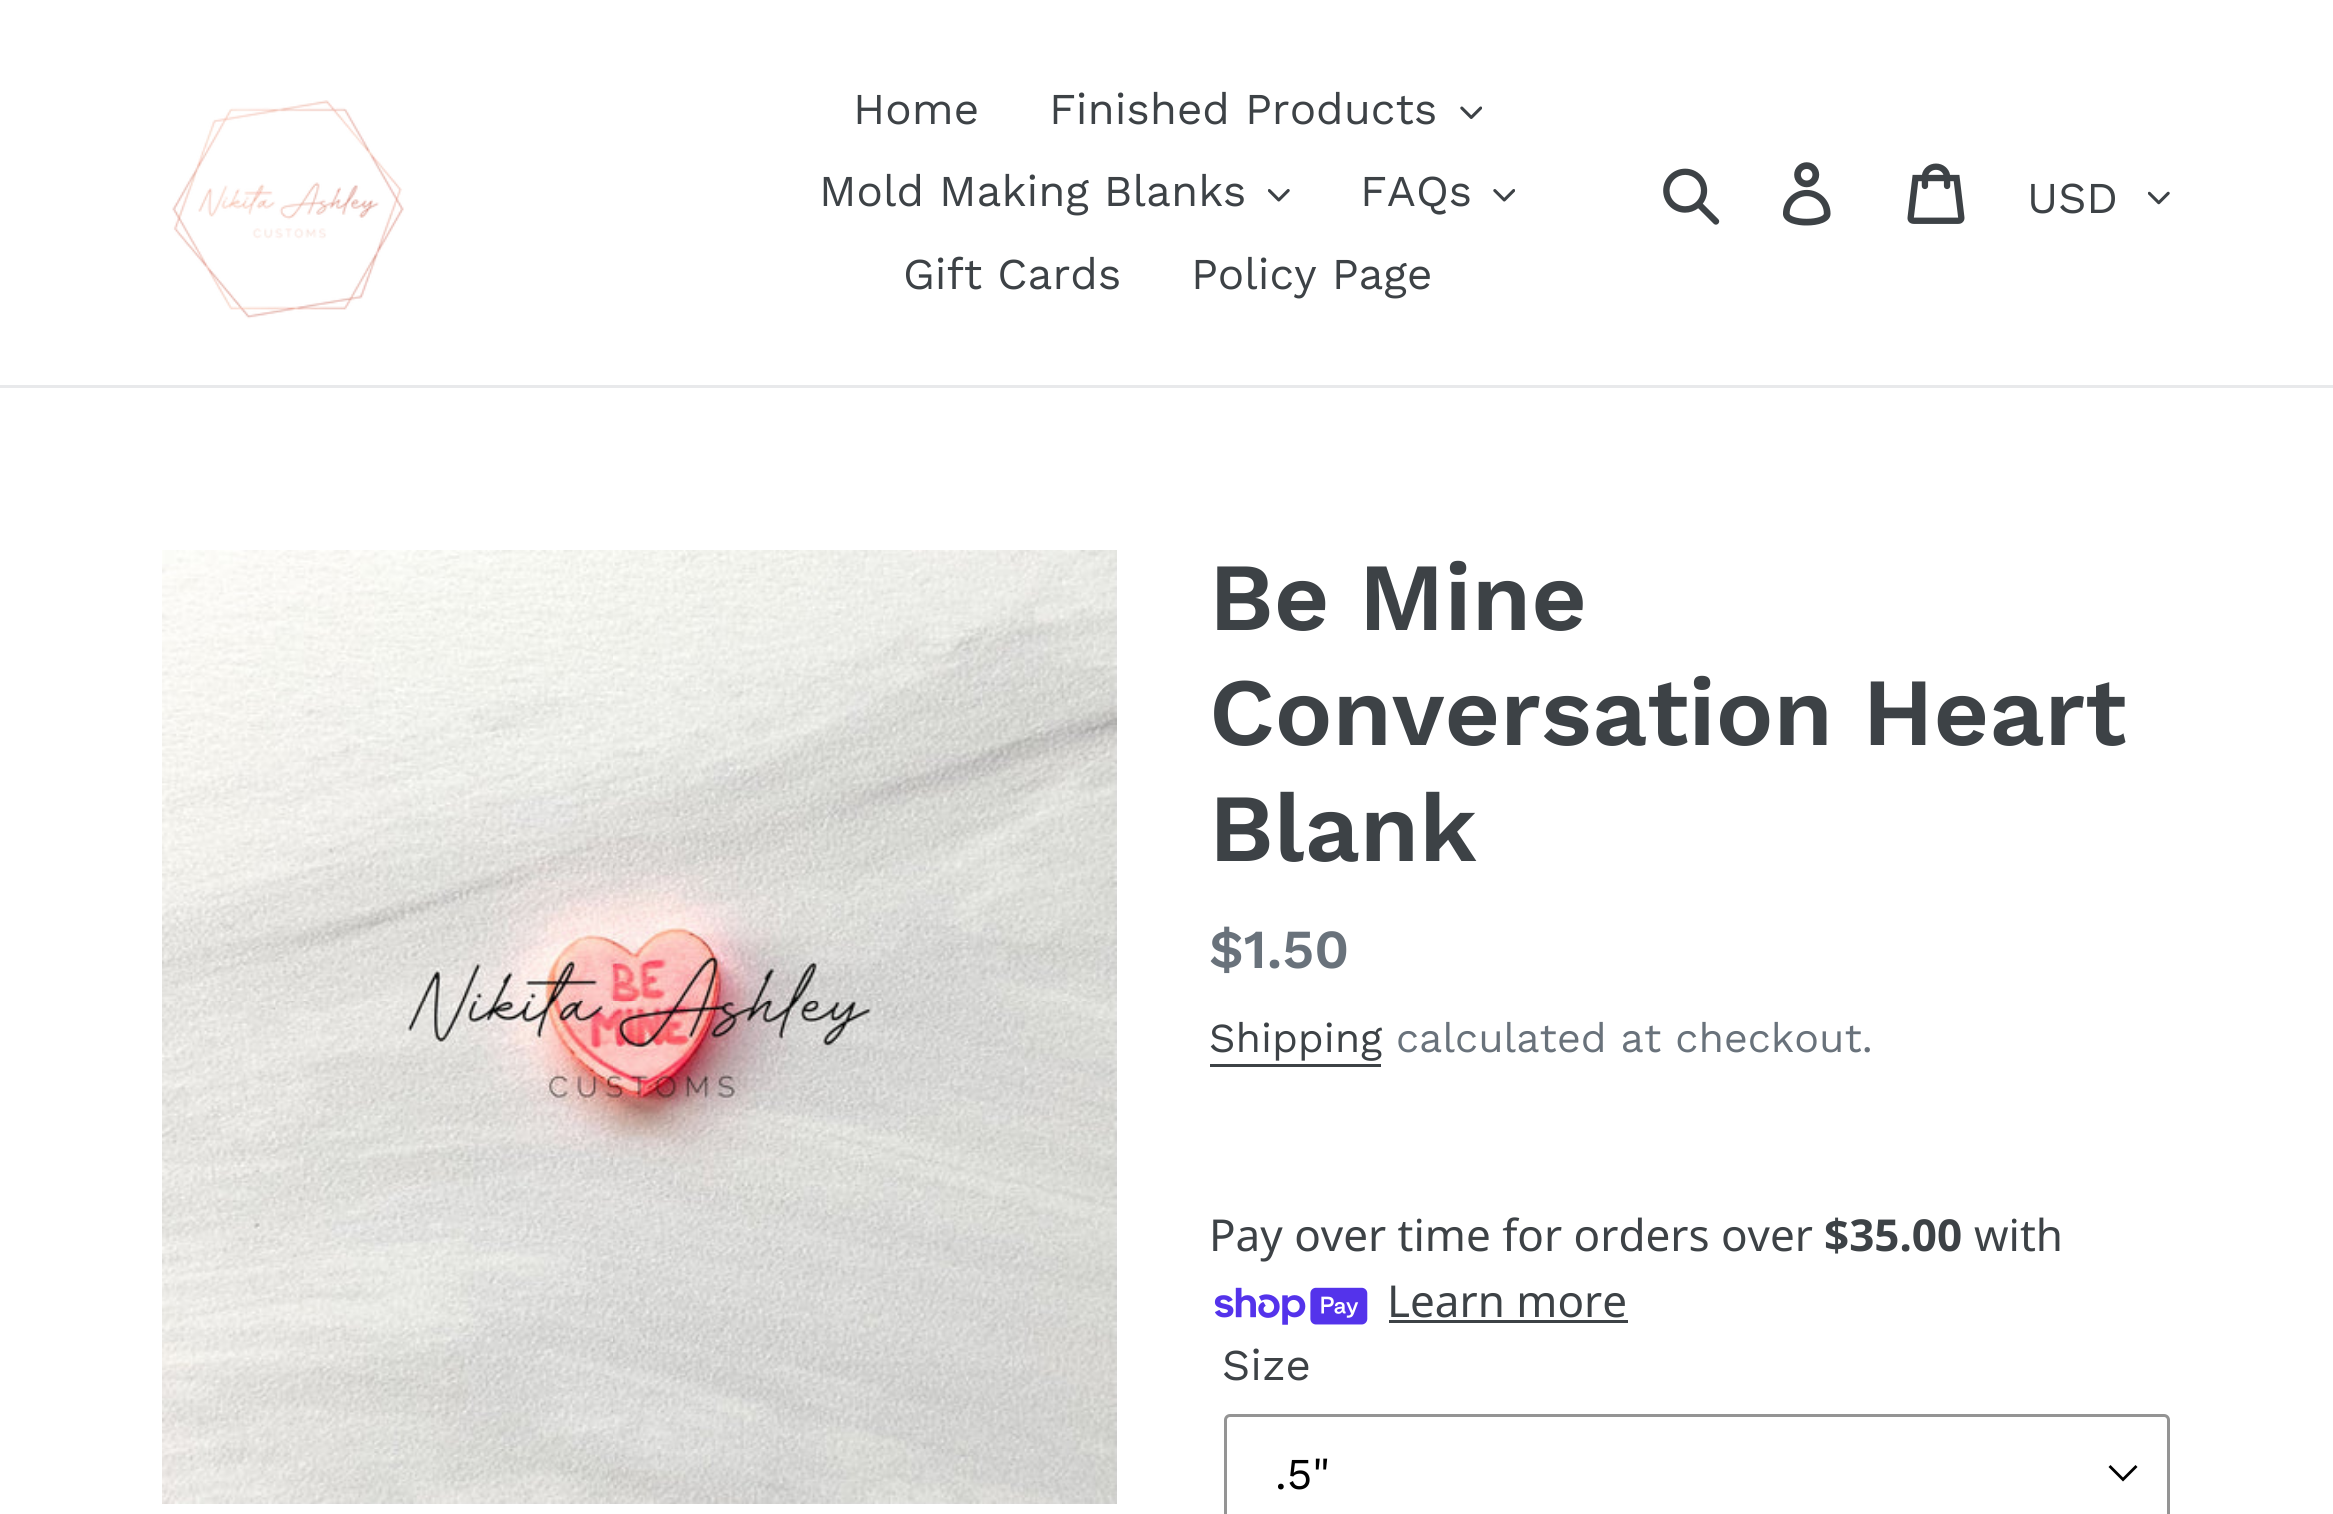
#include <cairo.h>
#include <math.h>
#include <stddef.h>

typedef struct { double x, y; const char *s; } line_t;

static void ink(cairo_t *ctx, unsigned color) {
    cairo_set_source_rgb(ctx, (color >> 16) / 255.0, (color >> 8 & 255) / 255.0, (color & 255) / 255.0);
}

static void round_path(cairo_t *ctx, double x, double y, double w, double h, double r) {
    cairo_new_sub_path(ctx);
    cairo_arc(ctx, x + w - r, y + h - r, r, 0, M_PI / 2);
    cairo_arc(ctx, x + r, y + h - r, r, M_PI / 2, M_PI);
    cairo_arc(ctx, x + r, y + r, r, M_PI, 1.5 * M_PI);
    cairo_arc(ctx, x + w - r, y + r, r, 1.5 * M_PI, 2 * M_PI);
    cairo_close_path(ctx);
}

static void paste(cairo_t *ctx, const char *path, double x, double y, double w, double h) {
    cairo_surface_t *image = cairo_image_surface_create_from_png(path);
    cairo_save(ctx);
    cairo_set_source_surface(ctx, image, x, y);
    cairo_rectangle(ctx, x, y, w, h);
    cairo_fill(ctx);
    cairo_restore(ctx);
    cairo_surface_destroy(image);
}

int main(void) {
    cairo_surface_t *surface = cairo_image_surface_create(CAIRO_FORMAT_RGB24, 2333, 1514);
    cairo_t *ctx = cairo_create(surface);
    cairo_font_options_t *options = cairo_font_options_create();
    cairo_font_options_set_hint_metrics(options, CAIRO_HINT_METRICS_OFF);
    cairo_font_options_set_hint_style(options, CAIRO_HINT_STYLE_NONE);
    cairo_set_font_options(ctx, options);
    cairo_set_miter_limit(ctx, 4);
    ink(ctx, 0xFFFFFF);
    cairo_paint(ctx);
    ink(ctx, 0xE8E9EB);
    cairo_rectangle(ctx, 0, 385, 2333, 3);
    cairo_fill(ctx);
    paste(ctx, "media/1.png", 172, 100, 232, 219);
    cairo_select_font_face(ctx, "Work Sans", CAIRO_FONT_SLANT_NORMAL, CAIRO_FONT_WEIGHT_NORMAL);
    cairo_set_font_size(ctx, 44);
    ink(ctx, 0x3D4246);
    cairo_move_to(ctx, 853, 124);
    cairo_show_text(ctx, "Home");
    cairo_move_to(ctx, 1049, 124);
    cairo_show_text(ctx, "Finished Products");
    paste(ctx, "media/2.png", 1460, 106, 22, 13);
    cairo_move_to(ctx, 819, 206);
    cairo_show_text(ctx, "Mold Making Blanks");
    paste(ctx, "media/3.png", 1268, 189, 22, 13);
    cairo_move_to(ctx, 1360, 206);
    cairo_show_text(ctx, "FAQs");
    paste(ctx, "media/4.png", 1493, 189, 22, 13);
    cairo_move_to(ctx, 903, 289);
    cairo_show_text(ctx, "Gift Cards");
    cairo_move_to(ctx, 1191, 289);
    cairo_show_text(ctx, "Policy Page");
    paste(ctx, "media/5.png", 1663, 168, 57, 57);
    paste(ctx, "media/6.png", 1783, 162, 48, 64);
    paste(ctx, "media/7.png", 1907, 163, 58, 61);
    cairo_move_to(ctx, 2027, 213);
    cairo_show_text(ctx, "USD");
    paste(ctx, "media/8.png", 2148, 191, 22, 14);
    paste(ctx, "media/9.png", 162, 550, 955, 954);
    cairo_select_font_face(ctx, "Work Sans SemiBold", CAIRO_FONT_SLANT_NORMAL, CAIRO_FONT_WEIGHT_NORMAL);
    cairo_set_font_size(ctx, 96.25);
    {
        static const line_t items[] = {
            {1209, 630, "Be Mine"},
            {1209, 745, "Conversation Heart"},
            {1209, 861, "Blank"},
        };
        for (size_t i = 0; i < sizeof items / sizeof *items; i++) {
            cairo_move_to(ctx, items[i].x, items[i].y);
            cairo_show_text(ctx, items[i].s);
        }
    }
    cairo_set_font_size(ctx, 55);
    ink(ctx, 0x69727B);
    cairo_move_to(ctx, 1209, 968);
    cairo_show_text(ctx, "$1.50");
    cairo_select_font_face(ctx, "Work Sans", CAIRO_FONT_SLANT_NORMAL, CAIRO_FONT_WEIGHT_NORMAL);
    cairo_set_font_size(ctx, 41.25);
    ink(ctx, 0x3D4246);
    cairo_move_to(ctx, 1209, 1052);
    cairo_show_text(ctx, "Shipping");
    cairo_rectangle(ctx, 1210, 1064, 171, 3);
    cairo_fill(ctx);
    ink(ctx, 0x69727B);
    cairo_move_to(ctx, 1396, 1052);
    cairo_show_text(ctx, "calculated at checkout.");
    cairo_select_font_face(ctx, "Noto Sans", CAIRO_FONT_SLANT_NORMAL, CAIRO_FONT_WEIGHT_NORMAL);
    cairo_set_font_size(ctx, 44);
    ink(ctx, 0x3D4246);
    cairo_move_to(ctx, 1209, 1251);
    cairo_show_text(ctx, "Pay over time for orders over");
    cairo_select_font_face(ctx, "Noto Sans", CAIRO_FONT_SLANT_NORMAL, CAIRO_FONT_WEIGHT_BOLD);
    cairo_move_to(ctx, 1824, 1251);
    cairo_show_text(ctx, "$35.00");
    cairo_select_font_face(ctx, "Noto Sans", CAIRO_FONT_SLANT_NORMAL, CAIRO_FONT_WEIGHT_NORMAL);
    cairo_move_to(ctx, 1974, 1251);
    cairo_show_text(ctx, "with");
    paste(ctx, "media/10.png", 1214, 1287, 154, 38);
    cairo_move_to(ctx, 1387, 1317);
    cairo_show_text(ctx, "Learn more");
    cairo_rectangle(ctx, 1389, 1320, 239, 3);
    cairo_fill(ctx);
    cairo_select_font_face(ctx, "Work Sans", CAIRO_FONT_SLANT_NORMAL, CAIRO_FONT_WEIGHT_NORMAL);
    cairo_move_to(ctx, 1222, 1380);
    cairo_show_text(ctx, "Size");
    ink(ctx, 0x000000);
    cairo_new_path(ctx);
    cairo_move_to(ctx, 2123, 1481.5);
    cairo_line_to(ctx, 2108.5, 1467);
    cairo_line_to(ctx, 2110.5, 1465);
    cairo_line_to(ctx, 2123, 1477.5);
    cairo_line_to(ctx, 2135.5, 1465);
    cairo_line_to(ctx, 2137.5, 1467);
    cairo_close_path(ctx);
    cairo_fill(ctx);
    round_path(ctx, 1225.5, 1415.5, 943, 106, 4.5);
    ink(ctx, 0x949494);
    cairo_set_line_width(ctx, 3);
    cairo_stroke(ctx);
    ink(ctx, 0x000000);
    cairo_move_to(ctx, 1275, 1489);
    cairo_show_text(ctx, ".5\"");
    cairo_surface_write_to_png(surface, "image.png");
    cairo_font_options_destroy(options);
    cairo_destroy(ctx);
    cairo_surface_destroy(surface);
    return 0;
}
